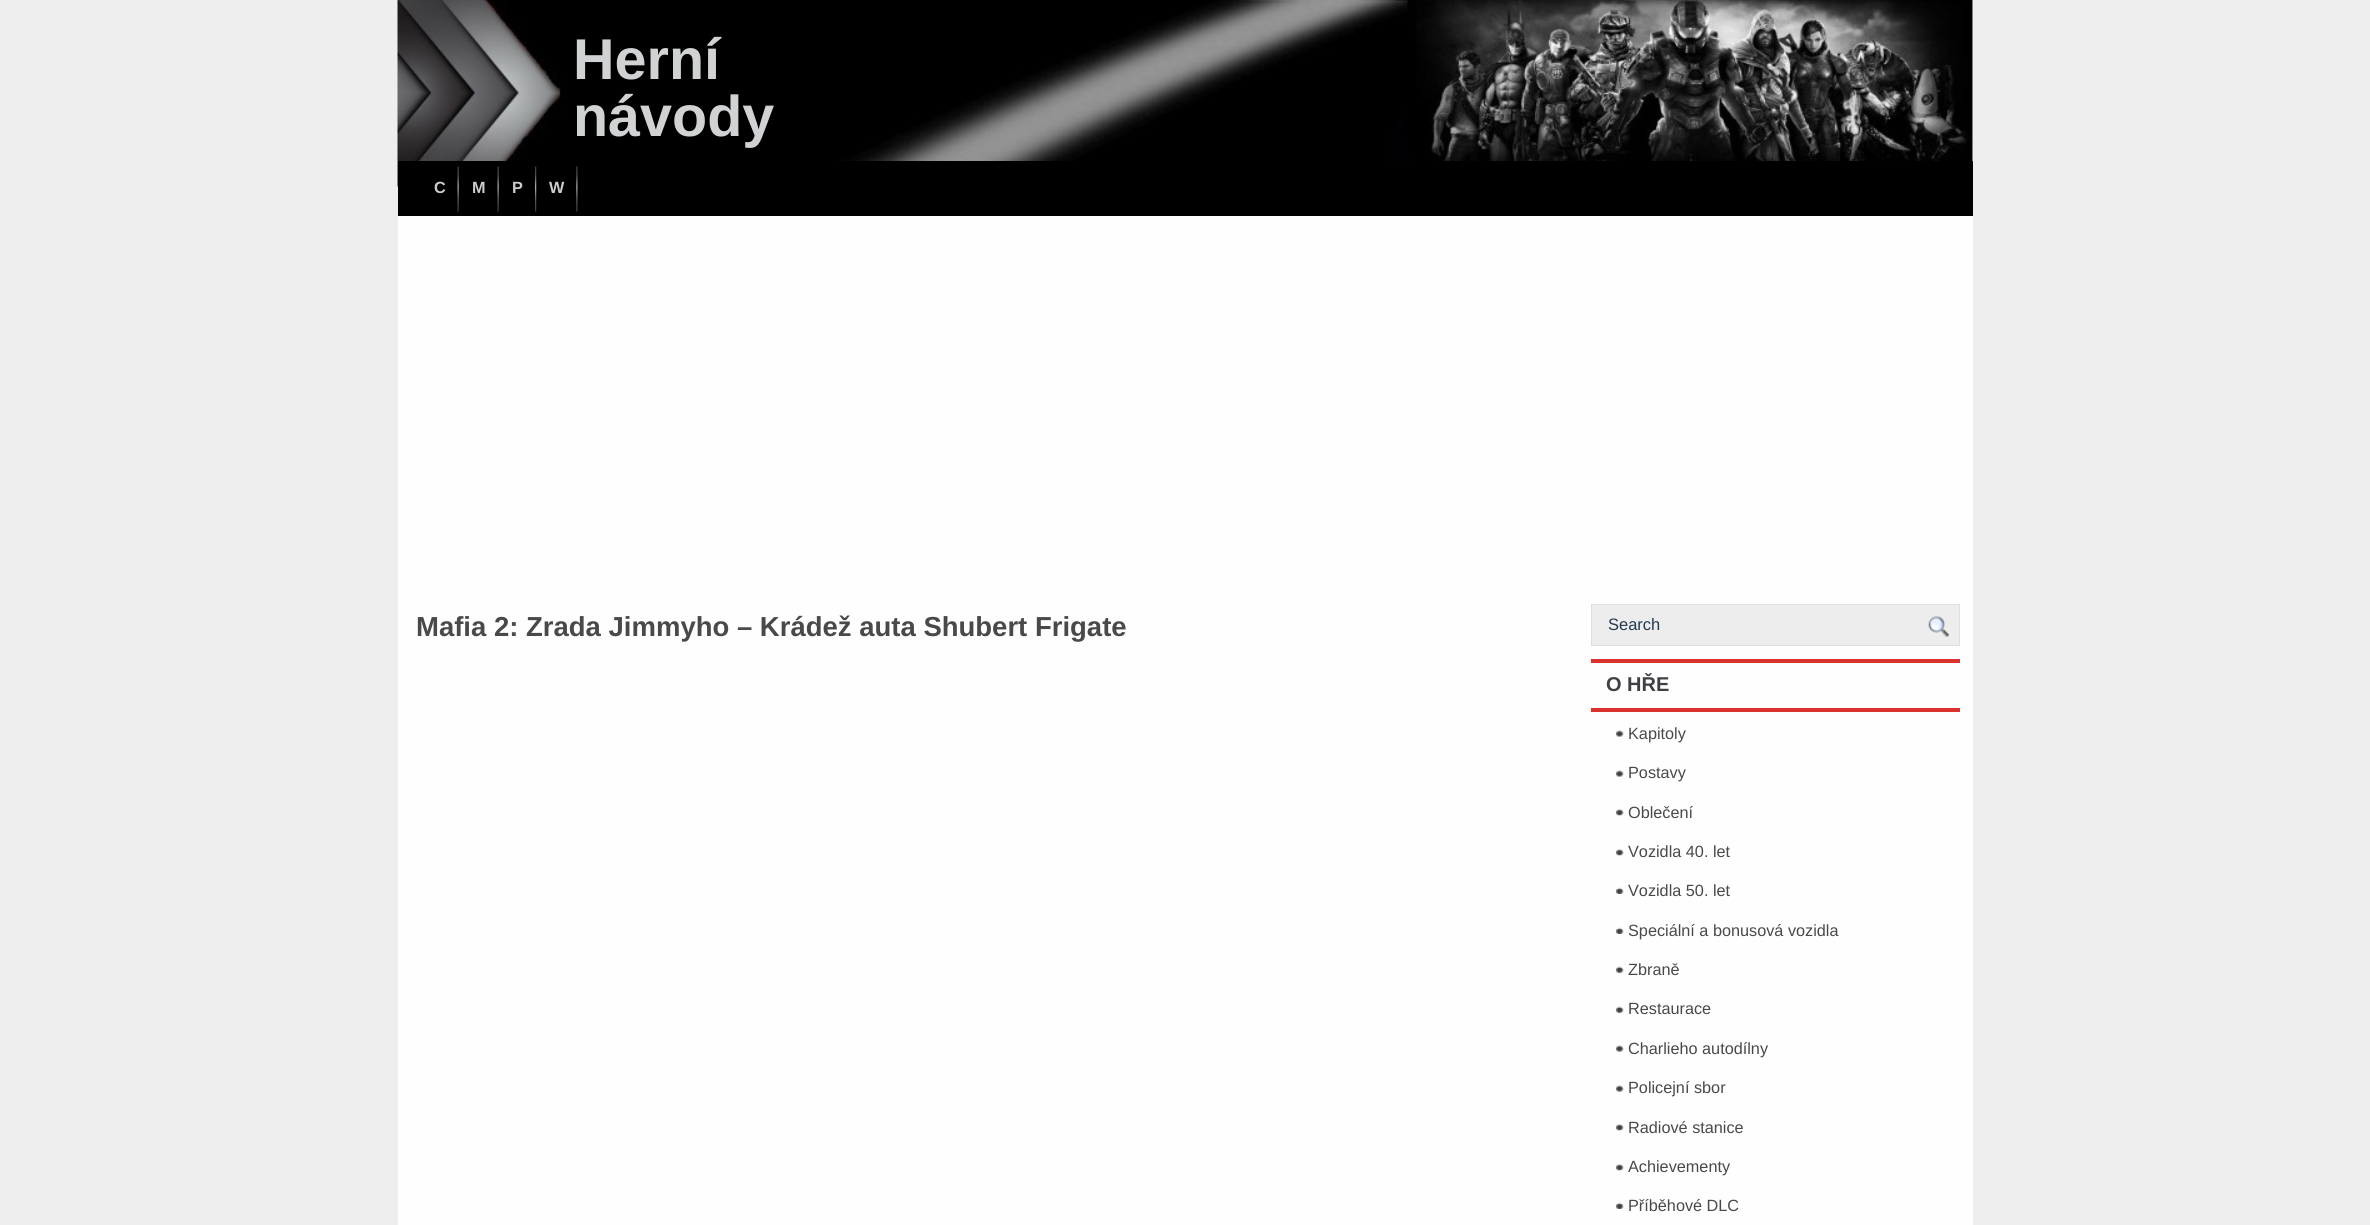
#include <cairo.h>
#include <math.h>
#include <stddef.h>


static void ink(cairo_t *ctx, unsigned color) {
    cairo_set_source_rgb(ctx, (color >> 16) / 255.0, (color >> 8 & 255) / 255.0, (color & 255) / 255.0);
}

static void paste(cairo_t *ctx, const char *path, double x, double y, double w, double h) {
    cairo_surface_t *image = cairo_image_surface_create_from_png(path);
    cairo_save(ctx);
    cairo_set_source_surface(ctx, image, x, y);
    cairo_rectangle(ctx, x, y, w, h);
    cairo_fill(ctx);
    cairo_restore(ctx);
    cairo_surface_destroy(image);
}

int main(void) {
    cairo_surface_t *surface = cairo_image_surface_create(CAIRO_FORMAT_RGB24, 2370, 1225);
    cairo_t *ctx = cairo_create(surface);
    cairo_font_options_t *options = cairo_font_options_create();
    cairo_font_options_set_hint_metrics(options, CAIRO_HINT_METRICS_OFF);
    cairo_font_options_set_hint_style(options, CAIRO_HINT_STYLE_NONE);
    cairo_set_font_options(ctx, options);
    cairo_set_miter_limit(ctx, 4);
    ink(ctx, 0xEEEEEE);
    cairo_paint(ctx);
    ink(ctx, 0xFEFEFF);
    cairo_rectangle(ctx, 398, 0, 1575, 1225);
    cairo_fill(ctx);
    paste(ctx, "media/1.png", 397, 0, 1576, 187);
    cairo_select_font_face(ctx, "Liberation Sans", CAIRO_FONT_SLANT_NORMAL, CAIRO_FONT_WEIGHT_BOLD);
    cairo_set_font_size(ctx, 57.5);
    ink(ctx, 0xD1D2D3);
    cairo_move_to(ctx, 573, 79);
    cairo_show_text(ctx, "Herní");
    cairo_move_to(ctx, 573, 136);
    cairo_show_text(ctx, "návody");
    ink(ctx, 0x000000);
    cairo_rectangle(ctx, 398, 161, 1575, 55);
    cairo_fill(ctx);
    paste(ctx, "media/2.png", 457, 166, 2, 46);
    cairo_set_font_size(ctx, 16.25);
    ink(ctx, 0xCCCCCC);
    cairo_move_to(ctx, 434, 193);
    cairo_show_text(ctx, "C");
    paste(ctx, "media/2.png", 497, 166, 2, 46);
    cairo_move_to(ctx, 472, 193);
    cairo_show_text(ctx, "M");
    paste(ctx, "media/3.png", 535, 166, 2, 46);
    cairo_move_to(ctx, 512, 193);
    cairo_show_text(ctx, "P");
    paste(ctx, "media/4.png", 576, 166, 2, 46);
    cairo_move_to(ctx, 549, 193);
    cairo_show_text(ctx, "W");
    cairo_set_font_size(ctx, 27.5);
    ink(ctx, 0x4A4848);
    cairo_move_to(ctx, 416, 636);
    cairo_show_text(ctx, "Mafia 2: Zrada Jimmyho – Krádež auta Shubert Frigate");
    ink(ctx, 0xEDEDED);
    cairo_rectangle(ctx, 1591.5, 604.5, 368, 41);
    cairo_fill_preserve(ctx);
    ink(ctx, 0xDEDDE3);
    cairo_set_line_width(ctx, 1);
    cairo_stroke(ctx);
    cairo_select_font_face(ctx, "Liberation Sans", CAIRO_FONT_SLANT_NORMAL, CAIRO_FONT_WEIGHT_NORMAL);
    cairo_set_font_size(ctx, 16.5);
    ink(ctx, 0x233950);
    cairo_move_to(ctx, 1608, 630);
    cairo_show_text(ctx, "Search");
    paste(ctx, "media/5.png", 1928, 616, 21, 21);
    ink(ctx, 0xDA332E);
    cairo_rectangle(ctx, 1591, 659, 369, 4);
    cairo_fill(ctx);
    cairo_rectangle(ctx, 1591, 708, 369, 4);
    cairo_fill(ctx);
    cairo_select_font_face(ctx, "Liberation Sans", CAIRO_FONT_SLANT_NORMAL, CAIRO_FONT_WEIGHT_BOLD);
    cairo_set_font_size(ctx, 20);
    ink(ctx, 0x403F45);
    cairo_move_to(ctx, 1606, 691);
    cairo_show_text(ctx, "O HŘE");
    paste(ctx, "media/6.png", 1616, 730, 8, 7);
    cairo_select_font_face(ctx, "Liberation Sans", CAIRO_FONT_SLANT_NORMAL, CAIRO_FONT_WEIGHT_NORMAL);
    cairo_set_font_size(ctx, 16.25);
    ink(ctx, 0x4A4848);
    cairo_move_to(ctx, 1628, 739);
    cairo_show_text(ctx, "Kapitoly");
    paste(ctx, "media/6.png", 1616, 770, 8, 7);
    cairo_move_to(ctx, 1628, 778);
    cairo_show_text(ctx, "Postavy");
    paste(ctx, "media/7.png", 1616, 809, 8, 7);
    cairo_move_to(ctx, 1628, 818);
    cairo_show_text(ctx, "Oblečení");
    paste(ctx, "media/7.png", 1616, 849, 8, 7);
    cairo_move_to(ctx, 1628, 857);
    cairo_show_text(ctx, "Vozidla 40. let");
    paste(ctx, "media/8.png", 1616, 887, 8, 7);
    cairo_move_to(ctx, 1628, 896);
    cairo_show_text(ctx, "Vozidla 50. let");
    paste(ctx, "media/8.png", 1616, 927, 8, 7);
    cairo_move_to(ctx, 1628, 936);
    cairo_show_text(ctx, "Speciální a bonusová vozidla");
    paste(ctx, "media/9.png", 1616, 966, 8, 7);
    cairo_move_to(ctx, 1628, 975);
    cairo_show_text(ctx, "Zbraně");
    paste(ctx, "media/10.png", 1616, 1006, 8, 7);
    cairo_move_to(ctx, 1628, 1014);
    cairo_show_text(ctx, "Restaurace");
    paste(ctx, "media/6.png", 1616, 1045, 8, 7);
    cairo_move_to(ctx, 1628, 1054);
    cairo_show_text(ctx, "Charlieho autodílny");
    paste(ctx, "media/6.png", 1616, 1085, 8, 7);
    cairo_move_to(ctx, 1628, 1093);
    cairo_show_text(ctx, "Policejní sbor");
    paste(ctx, "media/7.png", 1616, 1124, 8, 7);
    cairo_move_to(ctx, 1628, 1133);
    cairo_show_text(ctx, "Radiové stanice");
    paste(ctx, "media/7.png", 1616, 1164, 8, 7);
    cairo_move_to(ctx, 1628, 1172);
    cairo_show_text(ctx, "Achievementy");
    paste(ctx, "media/8.png", 1616, 1202, 8, 7);
    cairo_move_to(ctx, 1628, 1211);
    cairo_show_text(ctx, "Příběhové DLC");
    cairo_surface_write_to_png(surface, "image.png");
    cairo_font_options_destroy(options);
    cairo_destroy(ctx);
    cairo_surface_destroy(surface);
    return 0;
}
